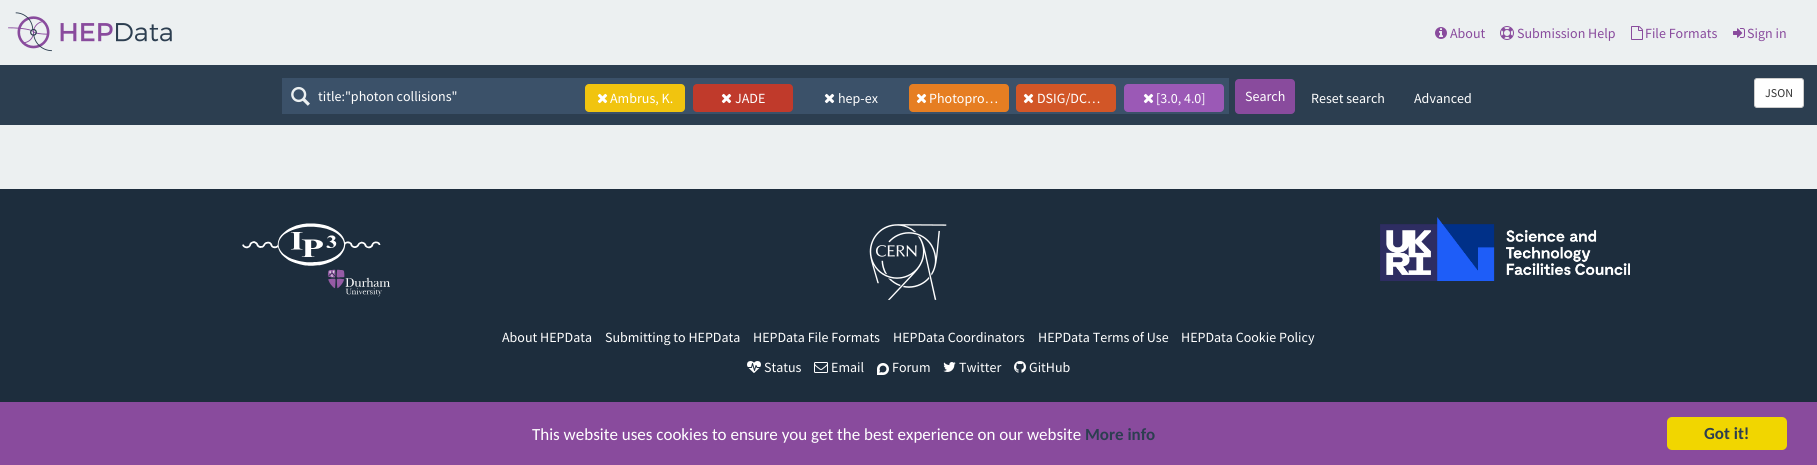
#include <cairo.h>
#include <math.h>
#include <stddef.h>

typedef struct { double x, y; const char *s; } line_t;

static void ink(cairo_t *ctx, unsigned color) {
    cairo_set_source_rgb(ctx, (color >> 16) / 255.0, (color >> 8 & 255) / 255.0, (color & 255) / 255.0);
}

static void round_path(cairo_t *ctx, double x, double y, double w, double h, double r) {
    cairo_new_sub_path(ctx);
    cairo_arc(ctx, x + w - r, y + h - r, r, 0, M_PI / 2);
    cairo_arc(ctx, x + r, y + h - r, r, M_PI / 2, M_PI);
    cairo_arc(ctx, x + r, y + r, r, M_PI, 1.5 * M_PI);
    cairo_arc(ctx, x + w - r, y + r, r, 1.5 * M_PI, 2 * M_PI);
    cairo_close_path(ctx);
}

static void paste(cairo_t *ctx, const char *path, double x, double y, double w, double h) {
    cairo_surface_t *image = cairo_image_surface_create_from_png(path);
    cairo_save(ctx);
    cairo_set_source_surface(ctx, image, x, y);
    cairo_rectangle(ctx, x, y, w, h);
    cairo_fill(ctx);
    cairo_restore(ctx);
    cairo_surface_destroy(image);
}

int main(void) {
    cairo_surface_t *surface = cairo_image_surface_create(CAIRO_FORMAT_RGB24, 1817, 465);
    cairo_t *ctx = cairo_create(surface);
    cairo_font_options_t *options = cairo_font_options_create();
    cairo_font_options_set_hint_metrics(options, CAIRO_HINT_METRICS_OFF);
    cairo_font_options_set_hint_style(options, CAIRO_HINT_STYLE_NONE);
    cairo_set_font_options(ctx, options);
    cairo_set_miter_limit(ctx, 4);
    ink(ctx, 0xECF0F1);
    cairo_paint(ctx);
    paste(ctx, "media/1.png", 8, 12, 164, 40);
    paste(ctx, "media/2.png", 1435, 27, 12, 12);
    cairo_select_font_face(ctx, "Source Sans Pro", CAIRO_FONT_SLANT_NORMAL, CAIRO_FONT_WEIGHT_NORMAL);
    cairo_set_font_size(ctx, 14);
    ink(ctx, 0x894B9D);
    cairo_move_to(ctx, 1450, 38);
    cairo_show_text(ctx, "About");
    paste(ctx, "media/3.png", 1500, 26, 14, 14);
    cairo_move_to(ctx, 1517, 38);
    cairo_show_text(ctx, "Submission Help");
    paste(ctx, "media/4.png", 1631, 26, 12, 14);
    cairo_move_to(ctx, 1645, 38);
    cairo_show_text(ctx, "File Formats");
    paste(ctx, "media/5.png", 1733, 28, 12, 10);
    cairo_move_to(ctx, 1747, 38);
    cairo_show_text(ctx, "Sign in");
    ink(ctx, 0x2C3E50);
    cairo_rectangle(ctx, 0, 65, 1817, 60);
    cairo_fill(ctx);
    ink(ctx, 0x3B5169);
    cairo_rectangle(ctx, 282, 78, 947, 36);
    cairo_fill(ctx);
    paste(ctx, "media/6.png", 291, 86, 19, 20);
    ink(ctx, 0xFFFFFF);
    cairo_move_to(ctx, 318, 101);
    cairo_show_text(ctx, "title:\"photon collisions\"");
    ink(ctx, 0xF1C40F);
    round_path(ctx, 585, 84, 100, 28, 4);
    cairo_fill(ctx);
    paste(ctx, "media/7.png", 597, 93, 11, 11);
    ink(ctx, 0xFFFFFF);
    cairo_move_to(ctx, 610, 103);
    cairo_show_text(ctx, "Ambrus, K.");
    ink(ctx, 0xC03A2B);
    round_path(ctx, 693, 84, 100, 28, 4);
    cairo_fill(ctx);
    paste(ctx, "media/8.png", 721, 93, 11, 11);
    ink(ctx, 0xFFFFFF);
    cairo_move_to(ctx, 735, 103);
    cairo_show_text(ctx, "JADE");
    paste(ctx, "media/9.png", 824, 93, 11, 11);
    cairo_move_to(ctx, 838, 103);
    cairo_show_text(ctx, "hep-ex");
    ink(ctx, 0xE67E22);
    round_path(ctx, 909, 84, 100, 28, 4);
    cairo_fill(ctx);
    paste(ctx, "media/10.png", 916, 93, 11, 11);
    ink(ctx, 0xFFFFFF);
    cairo_move_to(ctx, 929, 103);
    cairo_show_text(ctx, "Photopro…");
    ink(ctx, 0xD25627);
    round_path(ctx, 1016, 84, 100, 28, 4);
    cairo_fill(ctx);
    paste(ctx, "media/11.png", 1023, 93, 11, 11);
    ink(ctx, 0xFFFFFF);
    cairo_move_to(ctx, 1037, 103);
    cairo_show_text(ctx, "DSIG/DC…");
    ink(ctx, 0x9B59B6);
    round_path(ctx, 1124, 84, 100, 28, 4);
    cairo_fill(ctx);
    paste(ctx, "media/12.png", 1143, 93, 11, 11);
    ink(ctx, 0xFFFFFF);
    cairo_move_to(ctx, 1156, 103);
    cairo_show_text(ctx, "[3.0, 4.0]");
    ink(ctx, 0x894B9D);
    round_path(ctx, 1235, 79, 60, 35, 4);
    cairo_fill(ctx);
    ink(ctx, 0xFFFFFF);
    {
        static const line_t items[] = {
            {1245, 101, "Search"},
            {1311, 103, "Reset search"},
            {1414, 103, "Advanced"},
        };
        for (size_t i = 0; i < sizeof items / sizeof *items; i++) {
            cairo_move_to(ctx, items[i].x, items[i].y);
            cairo_show_text(ctx, items[i].s);
        }
    }
    round_path(ctx, 1754.5, 78.5, 49, 29, 2.5);
    cairo_fill_preserve(ctx);
    ink(ctx, 0xCCCCCC);
    cairo_set_line_width(ctx, 1);
    cairo_stroke(ctx);
    cairo_set_font_size(ctx, 12);
    ink(ctx, 0x333333);
    cairo_move_to(ctx, 1765, 97);
    cairo_show_text(ctx, "JSON");
    ink(ctx, 0x1D2D3D);
    cairo_rectangle(ctx, 0, 189, 1817, 213);
    cairo_fill(ctx);
    paste(ctx, "media/13.png", 242, 223, 148, 74);
    paste(ctx, "media/14.png", 869, 224, 78, 76);
    paste(ctx, "media/15.png", 1380, 217, 250, 64);
    cairo_set_font_size(ctx, 14);
    ink(ctx, 0xFFFFFF);
    {
        static const line_t items[] = {
            {502, 342, "About HEPData"},
            {605, 342, "Submitting to HEPData"},
            {753, 342, "HEPData File Formats"},
            {893, 342, "HEPData Coordinators"},
            {1038, 342, "HEPData Terms of Use"},
            {1181, 342, "HEPData Cookie Policy"},
        };
        for (size_t i = 0; i < sizeof items / sizeof *items; i++) {
            cairo_move_to(ctx, items[i].x, items[i].y);
            cairo_show_text(ctx, items[i].s);
        }
    }
    paste(ctx, "media/16.png", 747, 361, 14, 12);
    cairo_move_to(ctx, 764, 372);
    cairo_show_text(ctx, "Status");
    paste(ctx, "media/17.png", 814, 362, 14, 11);
    cairo_move_to(ctx, 831, 372);
    cairo_show_text(ctx, "Email");
    paste(ctx, "media/18.png", 877, 363, 12, 12);
    cairo_move_to(ctx, 892, 372);
    cairo_show_text(ctx, "Forum");
    paste(ctx, "media/19.png", 943, 362, 13, 10);
    cairo_move_to(ctx, 959, 372);
    cairo_show_text(ctx, "Twitter");
    paste(ctx, "media/20.png", 1014, 361, 12, 12);
    cairo_move_to(ctx, 1029, 372);
    cairo_show_text(ctx, "GitHub");
    ink(ctx, 0x894B9D);
    cairo_rectangle(ctx, 0, 402, 1817, 63);
    cairo_fill(ctx);
    cairo_select_font_face(ctx, "Carlito", CAIRO_FONT_SLANT_NORMAL, CAIRO_FONT_WEIGHT_NORMAL);
    cairo_set_font_size(ctx, 17);
    ink(ctx, 0xFFFFFF);
    cairo_move_to(ctx, 532, 440);
    cairo_show_text(ctx, "This website uses cookies to ensure you get the best experience on our website");
    cairo_select_font_face(ctx, "Carlito", CAIRO_FONT_SLANT_NORMAL, CAIRO_FONT_WEIGHT_BOLD);
    ink(ctx, 0x2C3E50);
    cairo_move_to(ctx, 1085, 440);
    cairo_show_text(ctx, "More info");
    ink(ctx, 0xF1D600);
    round_path(ctx, 1667, 417, 120, 33, 5);
    cairo_fill(ctx);
    ink(ctx, 0x2C3E50);
    cairo_move_to(ctx, 1704, 439);
    cairo_show_text(ctx, "Got it!");
    cairo_surface_write_to_png(surface, "image.png");
    cairo_font_options_destroy(options);
    cairo_destroy(ctx);
    cairo_surface_destroy(surface);
    return 0;
}
